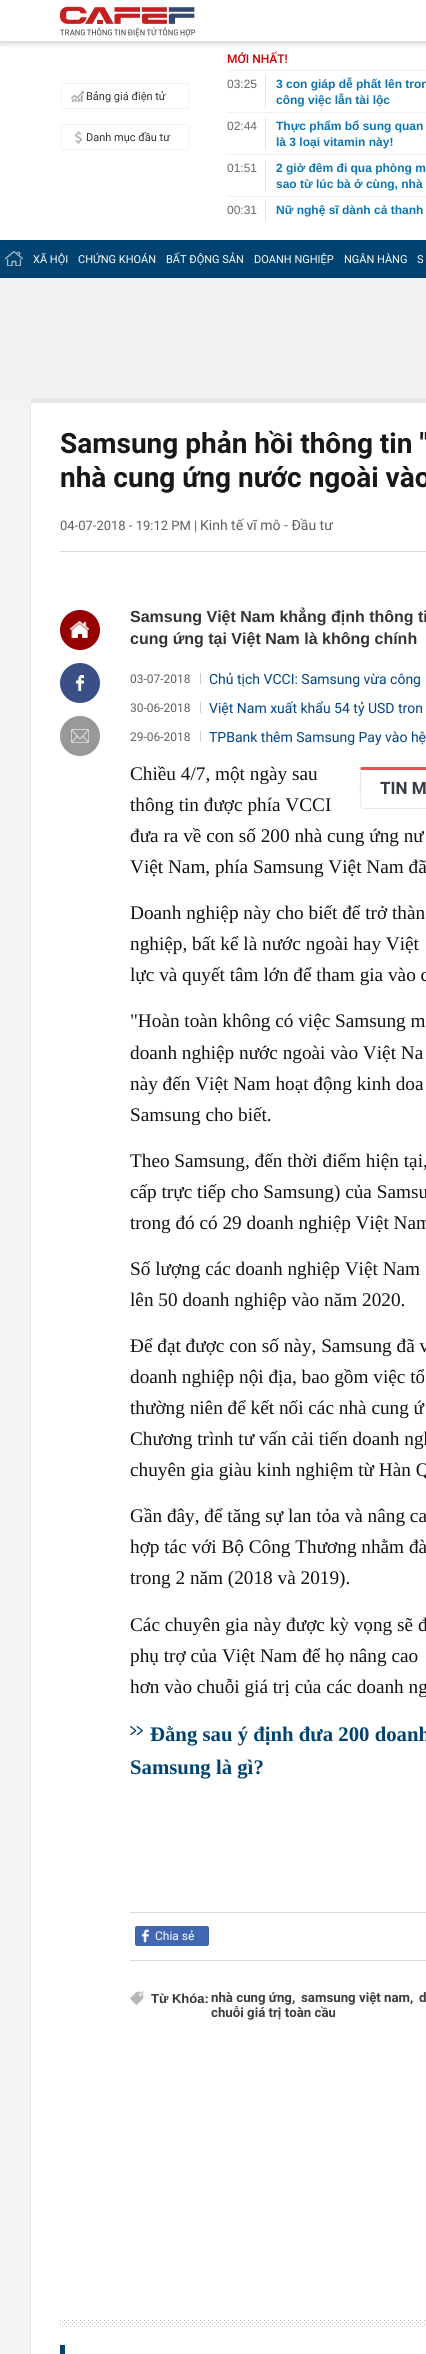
#include <cairo.h>
#include <math.h>
#include <stddef.h>

typedef struct { double x, y; const char *s; } line_t;

static void ink(cairo_t *ctx, unsigned color) {
    cairo_set_source_rgb(ctx, (color >> 16) / 255.0, (color >> 8 & 255) / 255.0, (color & 255) / 255.0);
}

static void round_path(cairo_t *ctx, double x, double y, double w, double h, double r) {
    cairo_new_sub_path(ctx);
    cairo_arc(ctx, x + w - r, y + h - r, r, 0, M_PI / 2);
    cairo_arc(ctx, x + r, y + h - r, r, M_PI / 2, M_PI);
    cairo_arc(ctx, x + r, y + r, r, M_PI, 1.5 * M_PI);
    cairo_arc(ctx, x + w - r, y + r, r, 1.5 * M_PI, 2 * M_PI);
    cairo_close_path(ctx);
}

static void blur_box(cairo_t *ctx, double x, double y, double w, double h, double r, double blur, double alpha) {
    cairo_push_group_with_content(ctx, CAIRO_CONTENT_ALPHA);
    cairo_set_operator(ctx, CAIRO_OPERATOR_SOURCE);
    for (int i = 15; i >= -15 && fmin(w, h) + blur * i / 3 > 0; i -= 2) {
        double e = blur * i / 6;
        cairo_set_source_rgba(ctx, 0, 0, 0, alpha * erfc((i - 1) / 8.5) / 2);
        round_path(ctx, x - e, y - e, w + 2 * e, h + 2 * e, fmax(0, fmin(r + e + blur * .6, fmin(w, h) / 2 + e)));
        cairo_fill(ctx);
    }
    cairo_pattern_t *soft = cairo_pop_group(ctx);
    cairo_mask(ctx, soft);
    cairo_pattern_destroy(soft);
}

static void paste(cairo_t *ctx, const char *path, double x, double y, double w, double h) {
    cairo_surface_t *image = cairo_image_surface_create_from_png(path);
    cairo_save(ctx);
    cairo_set_source_surface(ctx, image, x, y);
    cairo_rectangle(ctx, x, y, w, h);
    cairo_fill(ctx);
    cairo_restore(ctx);
    cairo_surface_destroy(image);
}

int main(void) {
    cairo_surface_t *surface = cairo_image_surface_create(CAIRO_FORMAT_RGB24, 426, 2354);
    cairo_t *ctx = cairo_create(surface);
    cairo_font_options_t *options = cairo_font_options_create();
    cairo_font_options_set_hint_metrics(options, CAIRO_HINT_METRICS_OFF);
    cairo_font_options_set_hint_style(options, CAIRO_HINT_STYLE_NONE);
    cairo_set_font_options(ctx, options);
    cairo_set_miter_limit(ctx, 4);
    ink(ctx, 0xFFFFFF);
    cairo_paint(ctx);
    cairo_save(ctx);
    cairo_rectangle(ctx, 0, 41, 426, 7);
    cairo_clip(ctx);
    ink(ctx, 0x333333);
    blur_box(ctx, 0, -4, 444, 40, 0, 6, 1);
    cairo_restore(ctx);
    paste(ctx, "media/1.png", 60, 6, 136, 31);
    ink(ctx, 0xFFFFFF);
    cairo_rectangle(ctx, 0, 40, 426, 1);
    cairo_fill(ctx);
    round_path(ctx, 60.5, 83.5, 129, 25, 4.5);
    ink(ctx, 0xF2F2F2);
    cairo_set_line_width(ctx, 1);
    cairo_stroke(ctx);
    paste(ctx, "media/2.png", 71, 91, 13, 11);
    cairo_select_font_face(ctx, "Roboto", CAIRO_FONT_SLANT_NORMAL, CAIRO_FONT_WEIGHT_NORMAL);
    cairo_set_font_size(ctx, 11);
    ink(ctx, 0x333333);
    cairo_move_to(ctx, 86, 100);
    cairo_show_text(ctx, "Bảng giá điện tử");
    paste(ctx, "media/3.png", 75, 131, 7, 13);
    round_path(ctx, 60.5, 124.5, 129, 25, 4.5);
    ink(ctx, 0xF2F2F2);
    cairo_stroke(ctx);
    ink(ctx, 0x333333);
    cairo_move_to(ctx, 86, 141);
    cairo_show_text(ctx, "Danh mục đầu tư");
    cairo_select_font_face(ctx, "Roboto Medium", CAIRO_FONT_SLANT_NORMAL, CAIRO_FONT_WEIGHT_NORMAL);
    cairo_set_font_size(ctx, 12);
    ink(ctx, 0xC90000);
    cairo_move_to(ctx, 227, 63);
    cairo_show_text(ctx, "MỚI NHẤT!");
    ink(ctx, 0xF0F0F0);
    cairo_rectangle(ctx, 227, 70, 199, 1);
    cairo_fill(ctx);
    cairo_select_font_face(ctx, "Liberation Sans", CAIRO_FONT_SLANT_NORMAL, CAIRO_FONT_WEIGHT_NORMAL);
    ink(ctx, 0x666666);
    cairo_move_to(ctx, 227, 88);
    cairo_show_text(ctx, "03:25");
    ink(ctx, 0xE4E4E4);
    cairo_rectangle(ctx, 265, 75, 1, 33);
    cairo_fill(ctx);
    cairo_select_font_face(ctx, "Liberation Sans", CAIRO_FONT_SLANT_NORMAL, CAIRO_FONT_WEIGHT_BOLD);
    ink(ctx, 0x0B75B1);
    cairo_move_to(ctx, 276, 88);
    cairo_show_text(ctx, "3 con giáp dễ phất lên tron");
    cairo_move_to(ctx, 276, 104);
    cairo_show_text(ctx, "công việc lẫn tài lộc");
    ink(ctx, 0xF0F0F0);
    cairo_rectangle(ctx, 227, 112, 199, 1);
    cairo_fill(ctx);
    cairo_select_font_face(ctx, "Liberation Sans", CAIRO_FONT_SLANT_NORMAL, CAIRO_FONT_WEIGHT_NORMAL);
    ink(ctx, 0x666666);
    cairo_move_to(ctx, 227, 130);
    cairo_show_text(ctx, "02:44");
    ink(ctx, 0xE4E4E4);
    cairo_rectangle(ctx, 265, 117, 1, 33);
    cairo_fill(ctx);
    cairo_select_font_face(ctx, "Liberation Sans", CAIRO_FONT_SLANT_NORMAL, CAIRO_FONT_WEIGHT_BOLD);
    ink(ctx, 0x0B75B1);
    cairo_move_to(ctx, 276, 130);
    cairo_show_text(ctx, "Thực phẩm bổ sung quan");
    cairo_move_to(ctx, 276, 146);
    cairo_show_text(ctx, "là 3 loại vitamin này!");
    ink(ctx, 0xF0F0F0);
    cairo_rectangle(ctx, 227, 154, 199, 1);
    cairo_fill(ctx);
    cairo_select_font_face(ctx, "Liberation Sans", CAIRO_FONT_SLANT_NORMAL, CAIRO_FONT_WEIGHT_NORMAL);
    ink(ctx, 0x666666);
    cairo_move_to(ctx, 227, 172);
    cairo_show_text(ctx, "01:51");
    ink(ctx, 0xE4E4E4);
    cairo_rectangle(ctx, 265, 159, 1, 33);
    cairo_fill(ctx);
    cairo_select_font_face(ctx, "Liberation Sans", CAIRO_FONT_SLANT_NORMAL, CAIRO_FONT_WEIGHT_BOLD);
    ink(ctx, 0x0B75B1);
    cairo_move_to(ctx, 276, 172);
    cairo_show_text(ctx, "2 giờ đêm đi qua phòng m");
    cairo_move_to(ctx, 276, 188);
    cairo_show_text(ctx, "sao từ lúc bà ở cùng, nhà");
    ink(ctx, 0xF0F0F0);
    cairo_rectangle(ctx, 227, 196, 199, 1);
    cairo_fill(ctx);
    cairo_select_font_face(ctx, "Liberation Sans", CAIRO_FONT_SLANT_NORMAL, CAIRO_FONT_WEIGHT_NORMAL);
    ink(ctx, 0x666666);
    cairo_move_to(ctx, 227, 214);
    cairo_show_text(ctx, "00:31");
    ink(ctx, 0xE4E4E4);
    cairo_rectangle(ctx, 265, 201, 1, 21);
    cairo_fill(ctx);
    cairo_select_font_face(ctx, "Liberation Sans", CAIRO_FONT_SLANT_NORMAL, CAIRO_FONT_WEIGHT_BOLD);
    ink(ctx, 0x0B75B1);
    cairo_move_to(ctx, 276, 214);
    cairo_show_text(ctx, "Nữ nghệ sĩ dành cả thanh");
    ink(ctx, 0x004370);
    cairo_rectangle(ctx, 0, 240, 426, 38);
    cairo_fill(ctx);
    paste(ctx, "media/4.png", 5, 251, 18, 15);
    cairo_select_font_face(ctx, "Roboto", CAIRO_FONT_SLANT_NORMAL, CAIRO_FONT_WEIGHT_NORMAL);
    cairo_set_font_size(ctx, 11);
    ink(ctx, 0xFFFFFF);
    {
        static const line_t items[] = {
            {33, 263, "XÃ HỘI"},
            {78, 263, "CHỨNG KHOÁN"},
            {166, 263, "BẤT ĐỘNG SẢN"},
            {254, 263, "DOANH NGHIỆP"},
            {344, 263, "NGÂN HÀNG"},
            {417, 263, "S"},
        };
        for (size_t i = 0; i < sizeof items / sizeof *items; i++) {
            cairo_move_to(ctx, items[i].x, items[i].y);
            cairo_show_text(ctx, items[i].s);
        }
    }
    ink(ctx, 0xF2F2F2);
    cairo_rectangle(ctx, 0, 278, 426, 120);
    cairo_fill(ctx);
    ink(ctx, 0xF2F3F5);
    cairo_rectangle(ctx, 0, 398, 35, 1956);
    cairo_fill(ctx);
    ink(ctx, 0xFFFFFF);
    cairo_new_path(ctx);
    cairo_move_to(ctx, 35, 403);
    cairo_line_to(ctx, 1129, 403);
    cairo_line_to(ctx, 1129, 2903);
    cairo_curve_to(ctx, 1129, 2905, 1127, 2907, 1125, 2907);
    cairo_line_to(ctx, 35, 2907);
    cairo_curve_to(ctx, 33, 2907, 31, 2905, 31, 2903);
    cairo_line_to(ctx, 31, 403);
    cairo_close_path(ctx);
    cairo_fill(ctx);
    ink(ctx, 0xE2E7EC);
    cairo_new_path(ctx);
    cairo_move_to(ctx, 35, 398);
    cairo_curve_to(ctx, 33, 398, 31, 399, 31, 401);
    cairo_line_to(ctx, 31, 403);
    cairo_line_to(ctx, 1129, 403);
    cairo_line_to(ctx, 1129, 401);
    cairo_curve_to(ctx, 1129, 399, 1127, 398, 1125, 398);
    cairo_close_path(ctx);
    cairo_fill(ctx);
    ink(ctx, 0xE7E8EA);
    cairo_new_path(ctx);
    cairo_move_to(ctx, 30, 403);
    cairo_line_to(ctx, 30, 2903);
    cairo_curve_to(ctx, 30, 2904, 30, 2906, 31, 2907);
    cairo_line_to(ctx, 32, 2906);
    cairo_curve_to(ctx, 32, 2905, 31, 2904, 31, 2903);
    cairo_line_to(ctx, 31, 403);
    cairo_line_to(ctx, 31, 401);
    cairo_close_path(ctx);
    cairo_fill(ctx);
    cairo_select_font_face(ctx, "Roboto", CAIRO_FONT_SLANT_NORMAL, CAIRO_FONT_WEIGHT_BOLD);
    cairo_set_font_size(ctx, 28);
    ink(ctx, 0x181818);
    cairo_move_to(ctx, 60, 453);
    cairo_show_text(ctx, "Samsung phản hồi thông tin \"");
    cairo_move_to(ctx, 60, 487);
    cairo_show_text(ctx, "nhà cung ứng nước ngoài vào");
    ink(ctx, 0xD9D9D9);
    cairo_rectangle(ctx, 60, 551, 366, 1);
    cairo_fill(ctx);
    cairo_select_font_face(ctx, "Roboto", CAIRO_FONT_SLANT_NORMAL, CAIRO_FONT_WEIGHT_NORMAL);
    cairo_set_font_size(ctx, 13);
    ink(ctx, 0x5F5F5F);
    cairo_move_to(ctx, 60, 530);
    cairo_show_text(ctx, "04-07-2018 - 19:12 PM |");
    cairo_set_font_size(ctx, 14);
    cairo_move_to(ctx, 200, 530);
    cairo_show_text(ctx, "Kinh tế vĩ mô - Đầu tư");
    ink(ctx, 0x970000);
    cairo_new_path(ctx);
    cairo_arc(ctx, 80, 630, 20, 0, 2 * M_PI);
    cairo_fill(ctx);
    paste(ctx, "media/5.png", 70, 621, 19, 17);
    ink(ctx, 0x3B4F87);
    cairo_arc(ctx, 80, 683, 20, 0, 2 * M_PI);
    cairo_fill(ctx);
    paste(ctx, "media/6.png", 76, 675, 8, 16);
    ink(ctx, 0x999999);
    cairo_arc(ctx, 80, 736, 20, 0, 2 * M_PI);
    cairo_fill(ctx);
    paste(ctx, "media/7.png", 71, 729, 18, 14);
    cairo_select_font_face(ctx, "Liberation Sans", CAIRO_FONT_SLANT_NORMAL, CAIRO_FONT_WEIGHT_BOLD);
    cairo_set_font_size(ctx, 16);
    ink(ctx, 0x333333);
    cairo_move_to(ctx, 130, 622);
    cairo_show_text(ctx, "Samsung Việt Nam khẳng định thông ti");
    cairo_move_to(ctx, 130, 644);
    cairo_show_text(ctx, "cung ứng tại Việt Nam là không chính");
    cairo_select_font_face(ctx, "Roboto", CAIRO_FONT_SLANT_NORMAL, CAIRO_FONT_WEIGHT_NORMAL);
    cairo_set_font_size(ctx, 12);
    ink(ctx, 0x5F5F5F);
    cairo_move_to(ctx, 130, 683);
    cairo_show_text(ctx, "03-07-2018");
    ink(ctx, 0xCCCCCC);
    cairo_rectangle(ctx, 200, 673, 1, 11);
    cairo_fill(ctx);
    cairo_set_font_size(ctx, 14);
    ink(ctx, 0x004383);
    cairo_move_to(ctx, 209, 684);
    cairo_show_text(ctx, "Chủ tịch VCCI: Samsung vừa công");
    cairo_set_font_size(ctx, 12);
    ink(ctx, 0x5F5F5F);
    cairo_move_to(ctx, 130, 712);
    cairo_show_text(ctx, "30-06-2018");
    ink(ctx, 0xCCCCCC);
    cairo_rectangle(ctx, 200, 702, 1, 11);
    cairo_fill(ctx);
    cairo_set_font_size(ctx, 14);
    ink(ctx, 0x004383);
    cairo_move_to(ctx, 209, 713);
    cairo_show_text(ctx, "Việt Nam xuất khẩu 54 tỷ USD tron");
    cairo_set_font_size(ctx, 12);
    ink(ctx, 0x5F5F5F);
    cairo_move_to(ctx, 130, 741);
    cairo_show_text(ctx, "29-06-2018");
    ink(ctx, 0xCCCCCC);
    cairo_rectangle(ctx, 200, 731, 1, 11);
    cairo_fill(ctx);
    cairo_set_font_size(ctx, 14);
    ink(ctx, 0x004383);
    cairo_move_to(ctx, 209, 742);
    cairo_show_text(ctx, "TPBank thêm Samsung Pay vào hệ");
    cairo_select_font_face(ctx, "Liberation Serif", CAIRO_FONT_SLANT_NORMAL, CAIRO_FONT_WEIGHT_NORMAL);
    cairo_set_font_size(ctx, 19.25);
    ink(ctx, 0x111111);
    {
        static const line_t items[] = {
            {130, 780, "Chiều 4/7, một ngày sau"},
            {130, 811, "thông tin được phía VCCI"},
            {130, 842, "đưa ra về con số 200 nhà cung ứng nư"},
            {130, 873, "Việt Nam, phía Samsung Việt Nam đã"},
        };
        for (size_t i = 0; i < sizeof items / sizeof *items; i++) {
            cairo_move_to(ctx, items[i].x, items[i].y);
            cairo_show_text(ctx, items[i].s);
        }
    }
    ink(ctx, 0xE25354);
    cairo_new_path(ctx);
    cairo_move_to(ctx, 363, 767);
    cairo_curve_to(ctx, 362, 767, 361, 767, 360, 768);
    cairo_line_to(ctx, 361, 770);
    cairo_line_to(ctx, 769, 770);
    cairo_line_to(ctx, 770, 768);
    cairo_curve_to(ctx, 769, 767, 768, 767, 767, 767);
    cairo_close_path(ctx);
    cairo_fill(ctx);
    ink(ctx, 0xE8E8E8);
    cairo_new_path(ctx);
    cairo_move_to(ctx, 363, 809);
    cairo_line_to(ctx, 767, 809);
    cairo_line_to(ctx, 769, 808);
    cairo_line_to(ctx, 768, 807);
    cairo_line_to(ctx, 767, 808);
    cairo_line_to(ctx, 363, 808);
    cairo_line_to(ctx, 362, 807);
    cairo_line_to(ctx, 361, 808);
    cairo_close_path(ctx);
    cairo_fill(ctx);
    cairo_new_path(ctx);
    cairo_move_to(ctx, 360, 770);
    cairo_curve_to(ctx, 360, 775, 359, 806, 361, 808);
    cairo_line_to(ctx, 362, 807);
    cairo_curve_to(ctx, 359, 805, 363, 775, 360, 768);
    cairo_close_path(ctx);
    cairo_fill(ctx);
    cairo_select_font_face(ctx, "Roboto", CAIRO_FONT_SLANT_NORMAL, CAIRO_FONT_WEIGHT_BOLD);
    cairo_set_font_size(ctx, 17);
    ink(ctx, 0x363D49);
    cairo_move_to(ctx, 380, 794);
    cairo_show_text(ctx, "TIN M");
    cairo_select_font_face(ctx, "Liberation Serif", CAIRO_FONT_SLANT_NORMAL, CAIRO_FONT_WEIGHT_NORMAL);
    cairo_set_font_size(ctx, 19.25);
    ink(ctx, 0x111111);
    {
        static const line_t items[] = {
            {130, 919, "Doanh nghiệp này cho biết để trở thàn"},
            {130, 950, "nghiệp, bất kể là nước ngoài hay Việt"},
            {130, 981, "lực và quyết tâm lớn để tham gia vào c"},
            {130, 1027, "\"Hoàn toàn không có việc Samsung m"},
            {130, 1059, "doanh nghiệp nước ngoài vào Việt Na"},
            {130, 1090, "này đến Việt Nam hoạt động kinh doa"},
            {130, 1121, "Samsung cho biết."},
            {130, 1167, "Theo Samsung, đến thời điểm hiện tại,"},
            {130, 1198, "cấp trực tiếp cho Samsung) của Samsu"},
            {130, 1229, "trong đó có 29 doanh nghiệp Việt Nam"},
            {130, 1275, "Số lượng các doanh nghiệp Việt Nam"},
            {130, 1306, "lên 50 doanh nghiệp vào năm 2020."},
            {130, 1352, "Để đạt được con số này, Samsung đã v"},
            {130, 1383, "doanh nghiệp nội địa, bao gồm việc tổ"},
            {130, 1414, "thường niên để kết nối các nhà cung ứ"},
            {130, 1445, "Chương trình tư vấn cải tiến doanh ngh"},
            {130, 1476, "chuyên gia giàu kinh nghiệm từ Hàn Q"},
            {130, 1522, "Gần đây, để tăng sự lan tỏa và nâng ca"},
            {130, 1553, "hợp tác với Bộ Công Thương nhằm đà"},
            {130, 1584, "trong 2 năm (2018 và 2019)."},
            {130, 1631, "Các chuyên gia này được kỳ vọng sẽ đ"},
            {130, 1662, "phụ trợ của Việt Nam để họ nâng cao"},
            {130, 1693, "hơn vào chuỗi giá trị của các doanh ng"},
        };
        for (size_t i = 0; i < sizeof items / sizeof *items; i++) {
            cairo_move_to(ctx, items[i].x, items[i].y);
            cairo_show_text(ctx, items[i].s);
        }
    }
    paste(ctx, "media/8.png", 130, 1726, 13, 9);
    cairo_select_font_face(ctx, "Liberation Serif", CAIRO_FONT_SLANT_NORMAL, CAIRO_FONT_WEIGHT_BOLD);
    cairo_set_font_size(ctx, 20.75);
    ink(ctx, 0x004370);
    cairo_move_to(ctx, 150, 1741);
    cairo_show_text(ctx, "Đằng sau ý định đưa 200 doanh");
    cairo_move_to(ctx, 130, 1774);
    cairo_show_text(ctx, "Samsung là gì?");
    ink(ctx, 0xD9D9D9);
    cairo_rectangle(ctx, 130, 1912, 296, 1);
    cairo_fill(ctx);
    cairo_rectangle(ctx, 130, 1960, 296, 1);
    cairo_fill(ctx);
    ink(ctx, 0x4167B2);
    round_path(ctx, 135, 1926, 74, 20, 2);
    cairo_fill(ctx);
    paste(ctx, "media/9.png", 142, 1929, 7, 14);
    cairo_select_font_face(ctx, "Roboto", CAIRO_FONT_SLANT_NORMAL, CAIRO_FONT_WEIGHT_NORMAL);
    cairo_set_font_size(ctx, 12);
    ink(ctx, 0xFFFFFF);
    cairo_move_to(ctx, 155, 1940);
    cairo_show_text(ctx, "Chia sẻ");
    paste(ctx, "media/10.png", 130, 1991, 14, 14);
    cairo_select_font_face(ctx, "Liberation Sans", CAIRO_FONT_SLANT_NORMAL, CAIRO_FONT_WEIGHT_BOLD);
    cairo_set_font_size(ctx, 13);
    ink(ctx, 0x333333);
    cairo_move_to(ctx, 151, 2003);
    cairo_show_text(ctx, "Từ Khóa:");
    cairo_select_font_face(ctx, "Roboto", CAIRO_FONT_SLANT_NORMAL, CAIRO_FONT_WEIGHT_BOLD);
    cairo_set_font_size(ctx, 13.25);
    ink(ctx, 0x3D3D3D);
    {
        static const line_t items[] = {
            {211, 2002, "nhà cung ứng,"},
            {301, 2002, "samsung việt nam,"},
            {419, 2002, "d"},
            {211, 2017, "chuỗi giá trị toàn cầu"},
        };
        for (size_t i = 0; i < sizeof items / sizeof *items; i++) {
            cairo_move_to(ctx, items[i].x, items[i].y);
            cairo_show_text(ctx, items[i].s);
        }
    }
    paste(ctx, "media/11.png", 60, 2320, 366, 7);
    ink(ctx, 0x004370);
    cairo_rectangle(ctx, 60, 2345, 5, 9);
    cairo_fill(ctx);
    cairo_surface_write_to_png(surface, "image.png");
    cairo_font_options_destroy(options);
    cairo_destroy(ctx);
    cairo_surface_destroy(surface);
    return 0;
}
